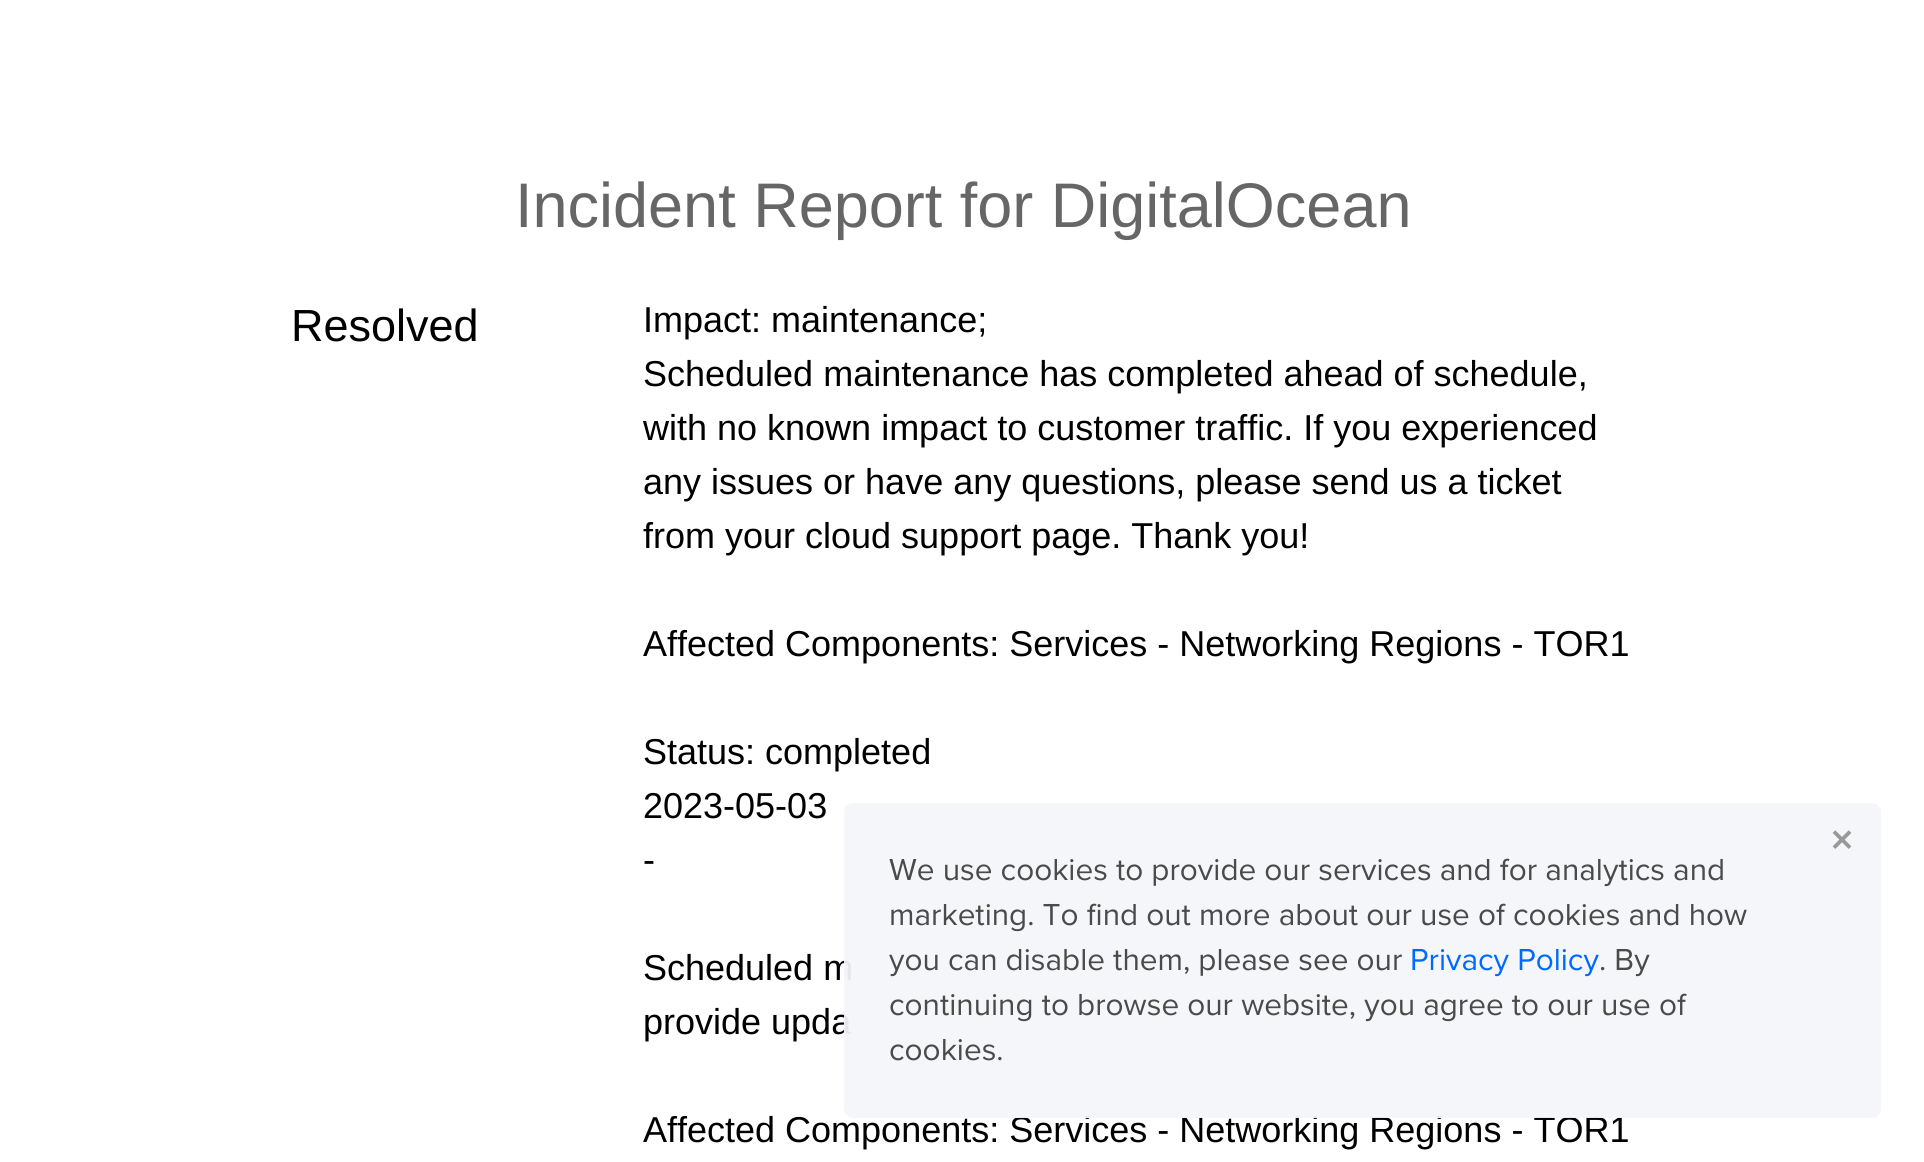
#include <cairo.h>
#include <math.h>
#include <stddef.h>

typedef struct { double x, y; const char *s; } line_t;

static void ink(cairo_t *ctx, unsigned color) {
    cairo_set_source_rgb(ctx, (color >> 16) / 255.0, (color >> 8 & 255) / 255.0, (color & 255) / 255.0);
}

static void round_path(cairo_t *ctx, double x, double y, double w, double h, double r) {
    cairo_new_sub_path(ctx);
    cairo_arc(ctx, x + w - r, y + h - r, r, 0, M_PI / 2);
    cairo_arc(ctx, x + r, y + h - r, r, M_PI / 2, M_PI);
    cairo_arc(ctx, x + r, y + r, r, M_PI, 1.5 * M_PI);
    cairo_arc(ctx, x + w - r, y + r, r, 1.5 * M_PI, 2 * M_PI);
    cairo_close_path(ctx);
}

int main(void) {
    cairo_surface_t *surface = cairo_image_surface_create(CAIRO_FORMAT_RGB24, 1924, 1162);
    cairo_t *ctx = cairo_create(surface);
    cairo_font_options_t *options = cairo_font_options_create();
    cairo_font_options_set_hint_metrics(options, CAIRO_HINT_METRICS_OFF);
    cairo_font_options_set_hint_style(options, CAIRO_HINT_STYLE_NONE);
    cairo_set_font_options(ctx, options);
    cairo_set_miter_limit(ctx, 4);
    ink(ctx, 0xFFFFFF);
    cairo_paint(ctx);
    cairo_select_font_face(ctx, "Liberation Sans", CAIRO_FONT_SLANT_NORMAL, CAIRO_FONT_WEIGHT_NORMAL);
    cairo_set_font_size(ctx, 63);
    ink(ctx, 0x666666);
    cairo_move_to(ctx, 515, 227);
    cairo_show_text(ctx, "Incident Report for DigitalOcean");
    cairo_set_font_size(ctx, 45);
    ink(ctx, 0x000000);
    cairo_move_to(ctx, 291, 341);
    cairo_show_text(ctx, "Resolved");
    cairo_set_font_size(ctx, 36);
    {
        static const line_t items[] = {
            {643, 332, "Impact: maintenance;"},
            {643, 386, "Scheduled maintenance has completed ahead of schedule,"},
            {643, 440, "with no known impact to customer traffic. If you experienced"},
            {643, 494, "any issues or have any questions, please send us a ticket"},
            {643, 548, "from your cloud support page. Thank you!"},
            {643, 656, "Affected Components: Services - Networking Regions - TOR1"},
            {643, 764, "Status: completed"},
            {643, 818, "2023-05-03"},
            {643, 872, "-"},
            {643, 980, "Scheduled m"},
            {643, 1034, "provide upda"},
            {643, 1142, "Affected Components: Services - Networking Regions - TOR1"},
        };
        for (size_t i = 0; i < sizeof items / sizeof *items; i++) {
            cairo_move_to(ctx, items[i].x, items[i].y);
            cairo_show_text(ctx, items[i].s);
        }
    }
    cairo_set_source_rgba(ctx, 0.953, 0.961, 0.976, 0.94);
    round_path(ctx, 844, 803, 1037, 315, 9);
    cairo_fill(ctx);
    cairo_select_font_face(ctx, "DejaVu Sans", CAIRO_FONT_SLANT_NORMAL, CAIRO_FONT_WEIGHT_BOLD);
    cairo_set_font_size(ctx, 30);
    ink(ctx, 0x999999);
    cairo_move_to(ctx, 1829, 851);
    cairo_show_text(ctx, "✕");
    cairo_select_font_face(ctx, "Proxima Nova", CAIRO_FONT_SLANT_NORMAL, CAIRO_FONT_WEIGHT_NORMAL);
    cairo_set_font_size(ctx, 31.5);
    ink(ctx, 0x4A4A4A);
    {
        static const line_t items[] = {
            {889, 880, "We use cookies to provide our services and for analytics and"},
            {889, 925, "marketing. To find out more about our use of cookies and how"},
            {889, 970, "you can disable them, please see our"},
        };
        for (size_t i = 0; i < sizeof items / sizeof *items; i++) {
            cairo_move_to(ctx, items[i].x, items[i].y);
            cairo_show_text(ctx, items[i].s);
        }
    }
    ink(ctx, 0x0069FF);
    cairo_move_to(ctx, 1410, 970);
    cairo_show_text(ctx, "Privacy Policy");
    ink(ctx, 0x4A4A4A);
    {
        static const line_t items[] = {
            {1599, 970, ". By"},
            {889, 1015, "continuing to browse our website, you agree to our use of"},
            {889, 1060, "cookies."},
        };
        for (size_t i = 0; i < sizeof items / sizeof *items; i++) {
            cairo_move_to(ctx, items[i].x, items[i].y);
            cairo_show_text(ctx, items[i].s);
        }
    }
    cairo_surface_write_to_png(surface, "image.png");
    cairo_font_options_destroy(options);
    cairo_destroy(ctx);
    cairo_surface_destroy(surface);
    return 0;
}
